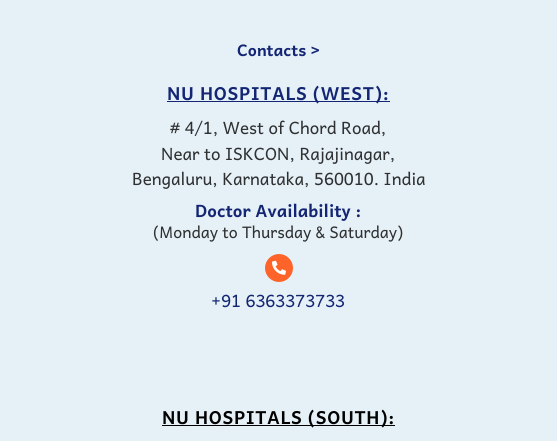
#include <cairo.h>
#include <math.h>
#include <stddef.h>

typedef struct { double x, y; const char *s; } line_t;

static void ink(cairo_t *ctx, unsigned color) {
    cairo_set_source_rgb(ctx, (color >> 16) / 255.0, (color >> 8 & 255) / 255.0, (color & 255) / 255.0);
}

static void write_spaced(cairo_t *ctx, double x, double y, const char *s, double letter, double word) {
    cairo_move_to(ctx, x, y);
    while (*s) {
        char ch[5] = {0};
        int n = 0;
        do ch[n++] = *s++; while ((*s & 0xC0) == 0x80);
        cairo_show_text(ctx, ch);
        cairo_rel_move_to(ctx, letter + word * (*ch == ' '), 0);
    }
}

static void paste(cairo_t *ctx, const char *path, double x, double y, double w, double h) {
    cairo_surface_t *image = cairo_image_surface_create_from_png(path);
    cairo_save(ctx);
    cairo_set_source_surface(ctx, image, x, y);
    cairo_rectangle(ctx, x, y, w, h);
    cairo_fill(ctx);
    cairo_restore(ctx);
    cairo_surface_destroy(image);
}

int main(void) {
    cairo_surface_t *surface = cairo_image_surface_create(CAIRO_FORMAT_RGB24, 557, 441);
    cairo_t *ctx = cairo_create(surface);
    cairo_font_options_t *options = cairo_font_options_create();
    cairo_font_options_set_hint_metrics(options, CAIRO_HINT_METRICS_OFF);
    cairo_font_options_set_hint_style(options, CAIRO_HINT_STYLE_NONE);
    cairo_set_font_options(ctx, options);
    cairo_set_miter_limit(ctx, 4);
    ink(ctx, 0xE6F1F7);
    cairo_paint(ctx);
    cairo_select_font_face(ctx, "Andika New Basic", CAIRO_FONT_SLANT_NORMAL, CAIRO_FONT_WEIGHT_BOLD);
    cairo_set_font_size(ctx, 16);
    ink(ctx, 0x132573);
    cairo_move_to(ctx, 237, 56);
    cairo_show_text(ctx, "Contacts >");
    cairo_rectangle(ctx, 167, 101, 223, 1);
    cairo_fill(ctx);
    cairo_set_font_size(ctx, 18);
    write_spaced(ctx, 167, 100, "NU HOSPITALS (WEST):", 0.5, 0);
    cairo_select_font_face(ctx, "Andika New Basic", CAIRO_FONT_SLANT_NORMAL, CAIRO_FONT_WEIGHT_NORMAL);
    cairo_set_font_size(ctx, 17);
    ink(ctx, 0x2E3031);
    {
        static const line_t items[] = {
            {170, 134, "# 4/1, West of Chord Road,"},
            {161, 160, "Near to ISKCON, Rajajinagar,"},
            {132, 185, "Bengaluru, Karnataka, 560010. India"},
        };
        for (size_t i = 0; i < sizeof items / sizeof *items; i++) {
            cairo_move_to(ctx, items[i].x, items[i].y);
            cairo_show_text(ctx, items[i].s);
        }
    }
    cairo_select_font_face(ctx, "Andika New Basic", CAIRO_FONT_SLANT_NORMAL, CAIRO_FONT_WEIGHT_BOLD);
    ink(ctx, 0x132573);
    cairo_move_to(ctx, 195, 217);
    cairo_show_text(ctx, "Doctor Availability :");
    cairo_select_font_face(ctx, "Andika New Basic", CAIRO_FONT_SLANT_NORMAL, CAIRO_FONT_WEIGHT_NORMAL);
    cairo_set_font_size(ctx, 16);
    ink(ctx, 0x2E3031);
    cairo_move_to(ctx, 153, 238);
    cairo_show_text(ctx, "(Monday to Thursday & Saturday)");
    ink(ctx, 0xFE642A);
    cairo_new_path(ctx);
    cairo_arc(ctx, 279, 268, 14, 0, 2 * M_PI);
    cairo_fill(ctx);
    paste(ctx, "media/1.png", 272, 260, 14, 15);
    cairo_set_font_size(ctx, 17);
    ink(ctx, 0x132573);
    cairo_move_to(ctx, 211, 307);
    cairo_show_text(ctx, "+91 6363373733");
    ink(ctx, 0x000000);
    cairo_rectangle(ctx, 162, 425, 233, 1);
    cairo_fill(ctx);
    cairo_select_font_face(ctx, "Andika New Basic", CAIRO_FONT_SLANT_NORMAL, CAIRO_FONT_WEIGHT_BOLD);
    cairo_set_font_size(ctx, 18);
    write_spaced(ctx, 162, 424, "NU HOSPITALS (SOUTH):", 0.5, 0);
    cairo_surface_write_to_png(surface, "image.png");
    cairo_font_options_destroy(options);
    cairo_destroy(ctx);
    cairo_surface_destroy(surface);
    return 0;
}
